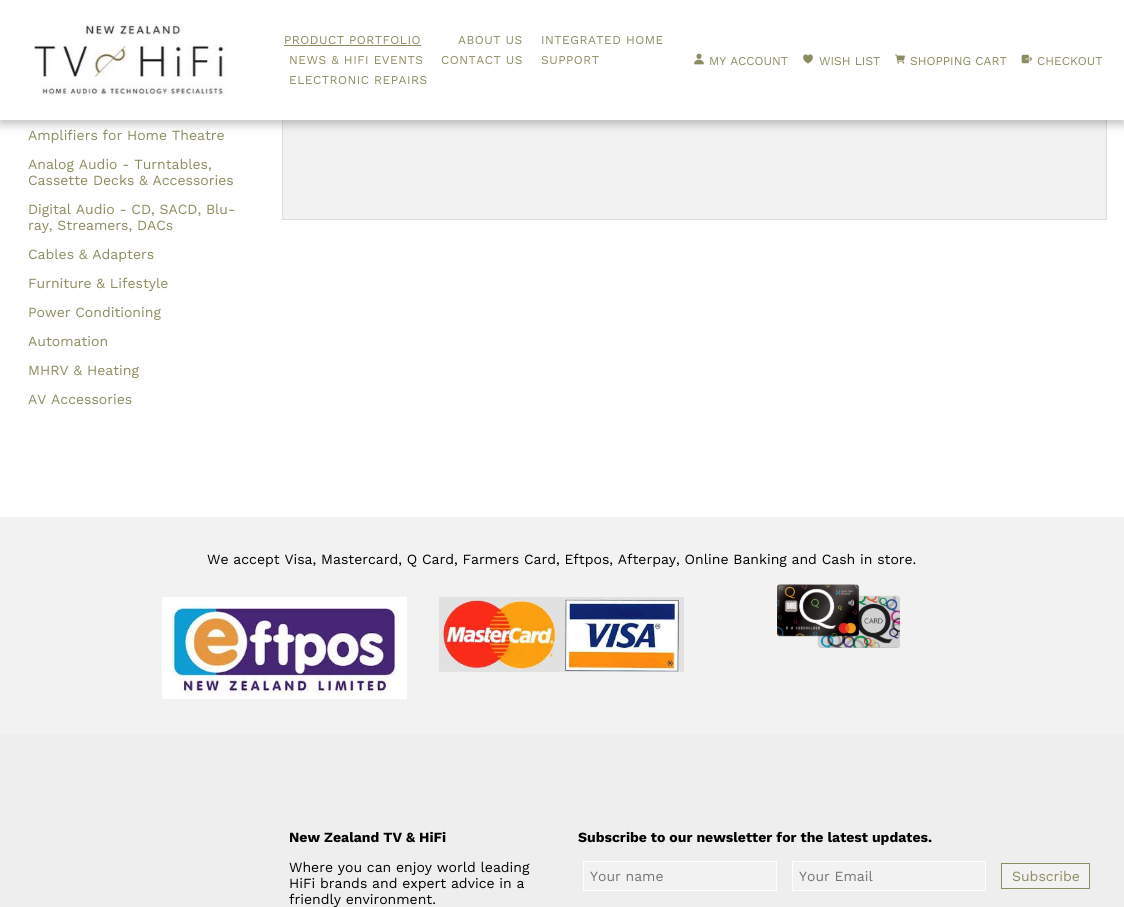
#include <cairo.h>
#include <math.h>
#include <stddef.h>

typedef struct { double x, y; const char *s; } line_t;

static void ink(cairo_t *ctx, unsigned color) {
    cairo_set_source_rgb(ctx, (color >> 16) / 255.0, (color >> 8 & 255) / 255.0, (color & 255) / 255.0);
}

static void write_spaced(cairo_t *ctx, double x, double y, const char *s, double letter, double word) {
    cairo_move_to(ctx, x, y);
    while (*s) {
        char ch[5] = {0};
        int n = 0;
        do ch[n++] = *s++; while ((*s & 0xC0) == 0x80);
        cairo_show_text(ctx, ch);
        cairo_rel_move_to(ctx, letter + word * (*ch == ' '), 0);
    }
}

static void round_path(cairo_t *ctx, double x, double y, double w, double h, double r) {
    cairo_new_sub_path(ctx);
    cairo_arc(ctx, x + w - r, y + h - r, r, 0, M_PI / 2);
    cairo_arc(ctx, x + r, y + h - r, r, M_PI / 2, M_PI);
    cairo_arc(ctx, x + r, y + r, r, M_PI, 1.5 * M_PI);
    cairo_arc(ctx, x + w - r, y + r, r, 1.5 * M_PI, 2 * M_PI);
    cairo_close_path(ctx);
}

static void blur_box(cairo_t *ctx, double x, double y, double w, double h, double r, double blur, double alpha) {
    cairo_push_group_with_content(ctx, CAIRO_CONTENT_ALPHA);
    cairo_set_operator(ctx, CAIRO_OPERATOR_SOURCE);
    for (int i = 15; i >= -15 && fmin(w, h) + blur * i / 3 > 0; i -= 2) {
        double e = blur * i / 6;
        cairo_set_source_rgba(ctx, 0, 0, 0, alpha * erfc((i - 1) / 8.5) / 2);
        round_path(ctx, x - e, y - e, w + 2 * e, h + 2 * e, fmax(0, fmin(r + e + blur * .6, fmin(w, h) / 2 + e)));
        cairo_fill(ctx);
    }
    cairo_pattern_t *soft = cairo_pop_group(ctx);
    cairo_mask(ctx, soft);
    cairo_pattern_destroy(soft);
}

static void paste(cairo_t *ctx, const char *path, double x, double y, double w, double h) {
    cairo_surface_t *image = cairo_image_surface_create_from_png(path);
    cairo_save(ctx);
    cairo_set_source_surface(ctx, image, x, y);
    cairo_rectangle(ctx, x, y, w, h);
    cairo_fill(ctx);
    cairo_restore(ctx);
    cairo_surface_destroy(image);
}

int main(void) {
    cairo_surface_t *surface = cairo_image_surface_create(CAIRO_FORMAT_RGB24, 1124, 907);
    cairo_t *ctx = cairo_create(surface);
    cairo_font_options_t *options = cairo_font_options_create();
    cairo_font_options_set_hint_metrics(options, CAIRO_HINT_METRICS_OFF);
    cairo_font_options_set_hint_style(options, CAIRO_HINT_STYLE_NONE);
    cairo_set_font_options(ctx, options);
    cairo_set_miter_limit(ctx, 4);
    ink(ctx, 0xFFFFFF);
    cairo_paint(ctx);
    ink(ctx, 0xF2F2F2);
    cairo_rectangle(ctx, 283, 120, 823, 99);
    cairo_fill(ctx);
    cairo_rectangle(ctx, 282.5, 118.5, 824, 101);
    ink(ctx, 0xDDDDDD);
    cairo_set_line_width(ctx, 1);
    cairo_stroke(ctx);
    ink(ctx, 0x000000);
    blur_box(ctx, 0, 4, 1124, 120, 0, 5, 0.25);
    ink(ctx, 0xFFFFFF);
    cairo_rectangle(ctx, 0, 0, 1124, 120);
    cairo_fill(ctx);
    paste(ctx, "media/1.png", 34, 24, 193, 73);
    cairo_select_font_face(ctx, "Work Sans", CAIRO_FONT_SLANT_NORMAL, CAIRO_FONT_WEIGHT_NORMAL);
    cairo_set_font_size(ctx, 12);
    ink(ctx, 0x8C8C61);
    write_spaced(ctx, 284, 44, "PRODUCT PORTFOLIO", 0.5, 0);
    cairo_rectangle(ctx, 284, 45, 137, 1);
    cairo_fill(ctx);
    {
        static const line_t items[] = {
            {458, 44, "ABOUT US"},
            {541, 44, "INTEGRATED HOME"},
            {289, 64, "NEWS & HIFI EVENTS"},
            {441, 64, "CONTACT US"},
            {541, 64, "SUPPORT"},
            {289, 84, "ELECTRONIC REPAIRS"},
        };
        for (size_t i = 0; i < sizeof items / sizeof *items; i++) {
            write_spaced(ctx, items[i].x, items[i].y, items[i].s, 0.5, 0);
        }
    }
    paste(ctx, "media/2.png", 694, 53, 10, 12);
    cairo_move_to(ctx, 709, 65);
    cairo_show_text(ctx, "MY ACCOUNT");
    paste(ctx, "media/3.png", 803, 54, 10, 10);
    cairo_move_to(ctx, 819, 65);
    cairo_show_text(ctx, "WISH LIST");
    paste(ctx, "media/4.png", 894, 54, 11, 10);
    cairo_move_to(ctx, 910, 65);
    cairo_show_text(ctx, "SHOPPING CART");
    paste(ctx, "media/5.png", 1021, 54, 12, 10);
    cairo_move_to(ctx, 1037, 65);
    cairo_show_text(ctx, "CHECKOUT");
    cairo_set_font_size(ctx, 14);
    {
        static const line_t items[] = {
            {28, 140, "Amplifiers for Home Theatre"},
            {28, 169, "Analog Audio - Turntables,"},
            {28, 185, "Cassette Decks & Accessories"},
            {28, 214, "Digital Audio - CD, SACD, Blu-"},
            {28, 230, "ray, Streamers, DACs"},
            {28, 259, "Cables & Adapters"},
            {28, 288, "Furniture & Lifestyle"},
            {28, 317, "Power Conditioning"},
            {28, 346, "Automation"},
            {28, 375, "MHRV & Heating"},
            {28, 404, "AV Accessories"},
        };
        for (size_t i = 0; i < sizeof items / sizeof *items; i++) {
            cairo_move_to(ctx, items[i].x, items[i].y);
            cairo_show_text(ctx, items[i].s);
        }
    }
    ink(ctx, 0xF2F2F2);
    cairo_rectangle(ctx, 0, 517, 1124, 218);
    cairo_fill(ctx);
    ink(ctx, 0x000000);
    cairo_move_to(ctx, 207, 564);
    cairo_show_text(ctx, "We accept Visa, Mastercard, Q Card, Farmers Card, Eftpos, Afterpay, Online Banking and Cash in store.");
    paste(ctx, "media/6.png", 162, 597, 245, 102);
    paste(ctx, "media/7.png", 439, 597, 245, 75);
    paste(ctx, "media/8.png", 777, 584, 123, 64);
    ink(ctx, 0xEEEEEE);
    cairo_rectangle(ctx, 0, 735, 1124, 172);
    cairo_fill(ctx);
    cairo_select_font_face(ctx, "Work Sans", CAIRO_FONT_SLANT_NORMAL, CAIRO_FONT_WEIGHT_BOLD);
    ink(ctx, 0x000000);
    cairo_move_to(ctx, 289, 842);
    cairo_show_text(ctx, "New Zealand TV & HiFi");
    cairo_select_font_face(ctx, "Work Sans", CAIRO_FONT_SLANT_NORMAL, CAIRO_FONT_WEIGHT_NORMAL);
    {
        static const line_t items[] = {
            {289, 872, "Where you can enjoy world leading"},
            {289, 888, "HiFi brands and expert advice in a"},
            {289, 904, "friendly environment."},
        };
        for (size_t i = 0; i < sizeof items / sizeof *items; i++) {
            cairo_move_to(ctx, items[i].x, items[i].y);
            cairo_show_text(ctx, items[i].s);
        }
    }
    cairo_select_font_face(ctx, "Work Sans", CAIRO_FONT_SLANT_NORMAL, CAIRO_FONT_WEIGHT_BOLD);
    cairo_move_to(ctx, 578, 842);
    cairo_show_text(ctx, "Subscribe to our newsletter for the latest updates.");
    ink(ctx, 0xF2F2F2);
    cairo_rectangle(ctx, 583.5, 861.5, 193, 29);
    cairo_fill_preserve(ctx);
    ink(ctx, 0xFFFFFF);
    cairo_stroke(ctx);
    cairo_select_font_face(ctx, "Work Sans", CAIRO_FONT_SLANT_NORMAL, CAIRO_FONT_WEIGHT_NORMAL);
    ink(ctx, 0x757575);
    cairo_move_to(ctx, 590, 881);
    cairo_show_text(ctx, "Your name");
    ink(ctx, 0xF2F2F2);
    cairo_rectangle(ctx, 792.5, 861.5, 193, 29);
    cairo_fill_preserve(ctx);
    ink(ctx, 0xFFFFFF);
    cairo_stroke(ctx);
    ink(ctx, 0x757575);
    cairo_move_to(ctx, 799, 881);
    cairo_show_text(ctx, "Your Email");
    ink(ctx, 0xF2F2F2);
    cairo_rectangle(ctx, 1001.5, 863.5, 88, 25);
    cairo_fill_preserve(ctx);
    ink(ctx, 0x8C8C61);
    cairo_stroke(ctx);
    cairo_move_to(ctx, 1012, 881);
    cairo_show_text(ctx, "Subscribe");
    cairo_surface_write_to_png(surface, "image.png");
    cairo_font_options_destroy(options);
    cairo_destroy(ctx);
    cairo_surface_destroy(surface);
    return 0;
}
